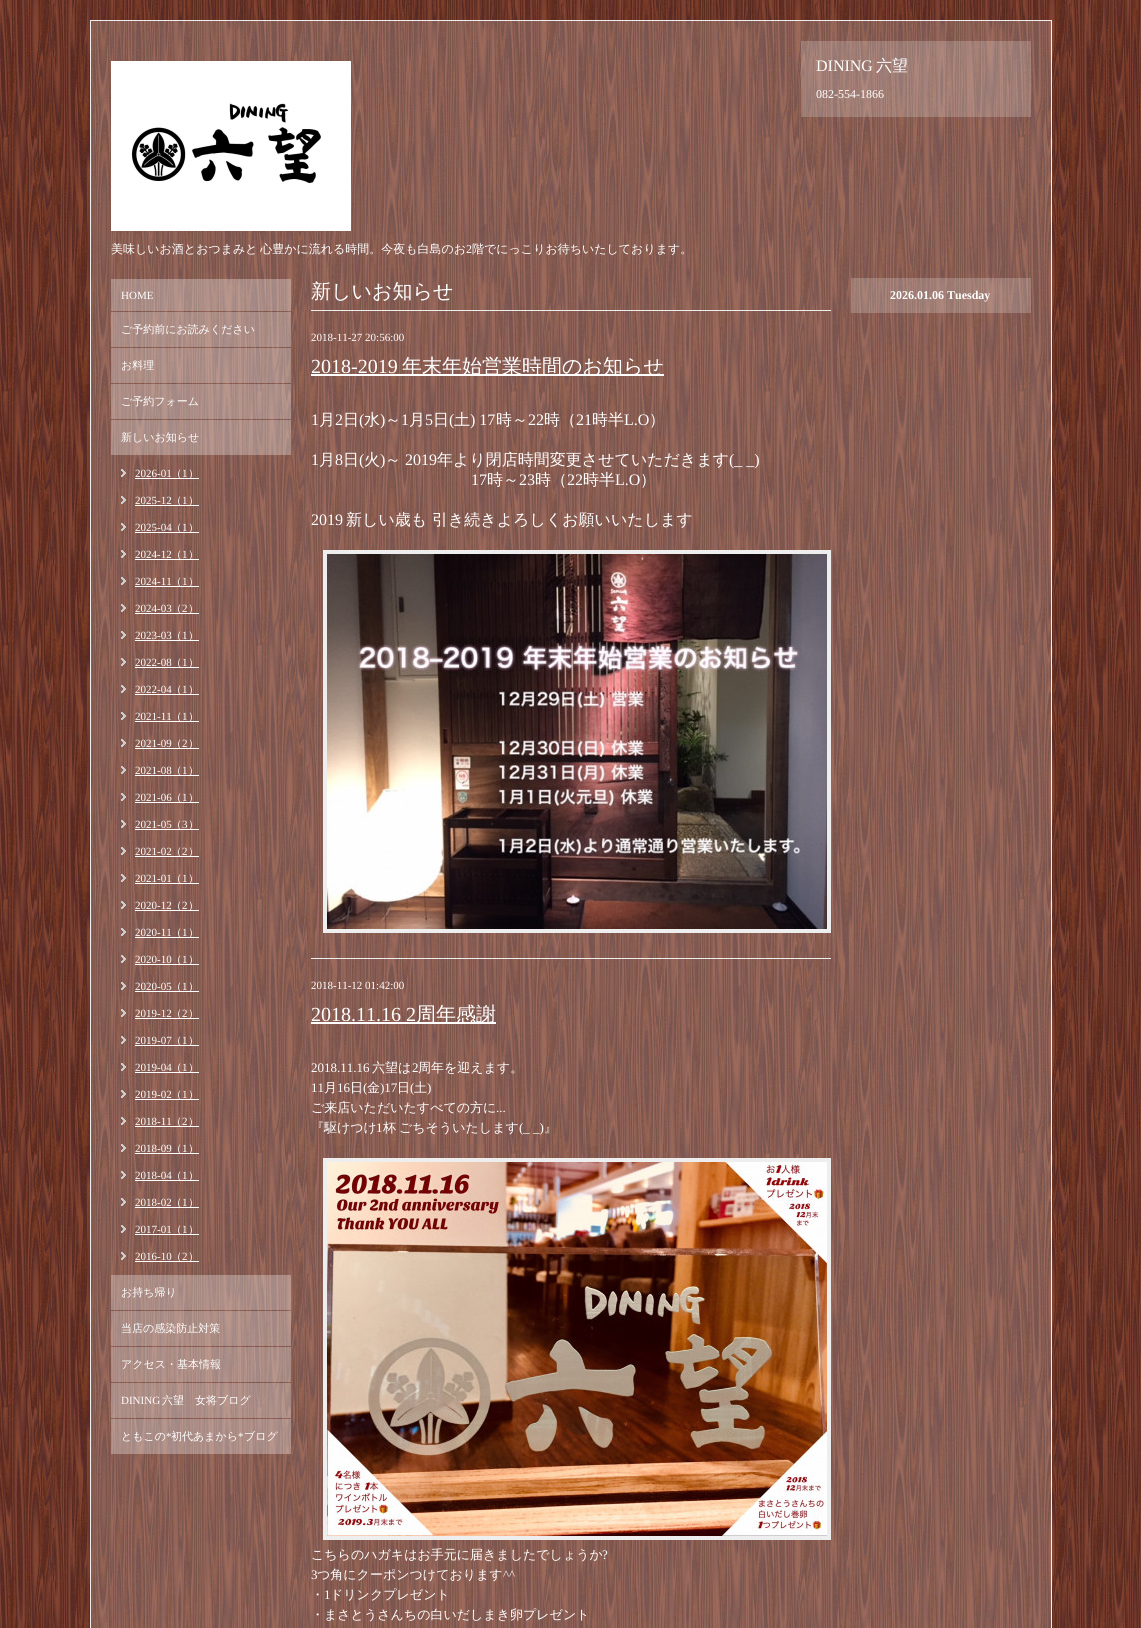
#include <cairo.h>
#include <math.h>
#include <stddef.h>


static void ink(cairo_t *ctx, unsigned color) {
    cairo_set_source_rgb(ctx, (color >> 16) / 255.0, (color >> 8 & 255) / 255.0, (color & 255) / 255.0);
}

static void write_spaced(cairo_t *ctx, double x, double y, const char *s, double letter, double word) {
    cairo_move_to(ctx, x, y);
    while (*s) {
        char ch[5] = {0};
        int n = 0;
        do ch[n++] = *s++; while ((*s & 0xC0) == 0x80);
        cairo_show_text(ctx, ch);
        cairo_rel_move_to(ctx, letter + word * (*ch == ' '), 0);
    }
}

static void paste(cairo_t *ctx, const char *path, double x, double y, double w, double h) {
    cairo_surface_t *image = cairo_image_surface_create_from_png(path);
    cairo_save(ctx);
    cairo_set_source_surface(ctx, image, x, y);
    cairo_rectangle(ctx, x, y, w, h);
    cairo_fill(ctx);
    cairo_restore(ctx);
    cairo_surface_destroy(image);
}

int main(void) {
    cairo_surface_t *surface = cairo_image_surface_create(CAIRO_FORMAT_RGB24, 1141, 1628);
    cairo_t *ctx = cairo_create(surface);
    cairo_font_options_t *options = cairo_font_options_create();
    cairo_font_options_set_hint_metrics(options, CAIRO_HINT_METRICS_OFF);
    cairo_font_options_set_hint_style(options, CAIRO_HINT_STYLE_NONE);
    cairo_set_font_options(ctx, options);
    cairo_set_miter_limit(ctx, 4);
    ink(ctx, 0xFFFFFF);
    cairo_paint(ctx);
    paste(ctx, "media/1.png", 0, 0, 1141, 1628);
    cairo_set_source_rgba(ctx, 1, 1, 1, 0.2);
    cairo_rectangle(ctx, 90.5, 20.5, 961, 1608);
    cairo_fill_preserve(ctx);
    ink(ctx, 0xEEEEEE);
    cairo_set_line_width(ctx, 1);
    cairo_stroke(ctx);
    cairo_set_source_rgba(ctx, 1, 1, 1, 0.2);
    cairo_rectangle(ctx, 801, 41, 230, 76);
    cairo_fill(ctx);
    cairo_select_font_face(ctx, "Liberation Serif", CAIRO_FONT_SLANT_NORMAL, CAIRO_FONT_WEIGHT_NORMAL);
    cairo_set_font_size(ctx, 16);
    ink(ctx, 0xFFFFFF);
    cairo_move_to(ctx, 816, 71);
    cairo_show_text(ctx, "DINING");
    cairo_select_font_face(ctx, "WenQuanYi Zen Hei Medium", CAIRO_FONT_SLANT_NORMAL, CAIRO_FONT_WEIGHT_NORMAL);
    cairo_move_to(ctx, 876, 71);
    cairo_show_text(ctx, "六望");
    cairo_select_font_face(ctx, "Liberation Serif", CAIRO_FONT_SLANT_NORMAL, CAIRO_FONT_WEIGHT_NORMAL);
    cairo_set_font_size(ctx, 12);
    cairo_move_to(ctx, 816, 98);
    cairo_show_text(ctx, "082-554-1866");
    paste(ctx, "media/2.png", 111, 61, 240, 170);
    cairo_select_font_face(ctx, "WenQuanYi Zen Hei Medium", CAIRO_FONT_SLANT_NORMAL, CAIRO_FONT_WEIGHT_NORMAL);
    write_spaced(ctx, 111, 253, "美味しいお酒とおつまみと 心豊かに流れる時間。今夜も白島のお", 0, -1);
    cairo_select_font_face(ctx, "Liberation Serif", CAIRO_FONT_SLANT_NORMAL, CAIRO_FONT_WEIGHT_NORMAL);
    cairo_move_to(ctx, 466, 253);
    cairo_show_text(ctx, "2");
    cairo_select_font_face(ctx, "WenQuanYi Zen Hei Medium", CAIRO_FONT_SLANT_NORMAL, CAIRO_FONT_WEIGHT_NORMAL);
    cairo_move_to(ctx, 472, 253);
    cairo_show_text(ctx, "階でにっこりお待ちいたしております。");
    cairo_set_source_rgba(ctx, 1, 1, 1, 0.3);
    cairo_rectangle(ctx, 111, 279, 180, 32);
    cairo_fill(ctx);
    cairo_select_font_face(ctx, "Liberation Serif", CAIRO_FONT_SLANT_NORMAL, CAIRO_FONT_WEIGHT_NORMAL);
    cairo_set_font_size(ctx, 11);
    ink(ctx, 0xFFFFFF);
    cairo_move_to(ctx, 121, 299);
    cairo_show_text(ctx, "HOME");
    cairo_set_source_rgba(ctx, 1, 1, 1, 0.3);
    cairo_rectangle(ctx, 111, 312, 180, 35);
    cairo_fill(ctx);
    cairo_select_font_face(ctx, "WenQuanYi Zen Hei Medium", CAIRO_FONT_SLANT_NORMAL, CAIRO_FONT_WEIGHT_NORMAL);
    ink(ctx, 0xFFFFFF);
    cairo_move_to(ctx, 121, 333);
    cairo_show_text(ctx, "ご予約前にお読みください");
    cairo_set_source_rgba(ctx, 1, 1, 1, 0.3);
    cairo_rectangle(ctx, 111, 348, 180, 35);
    cairo_fill(ctx);
    ink(ctx, 0xFFFFFF);
    cairo_move_to(ctx, 121, 369);
    cairo_show_text(ctx, "お料理");
    cairo_set_source_rgba(ctx, 1, 1, 1, 0.3);
    cairo_rectangle(ctx, 111, 384, 180, 35);
    cairo_fill(ctx);
    ink(ctx, 0xFFFFFF);
    cairo_move_to(ctx, 121, 405);
    cairo_show_text(ctx, "ご予約フォーム");
    cairo_set_source_rgba(ctx, 1, 1, 1, 0.3);
    cairo_rectangle(ctx, 111, 420, 180, 35);
    cairo_fill(ctx);
    ink(ctx, 0xFFFFFF);
    cairo_move_to(ctx, 121, 441);
    cairo_show_text(ctx, "新しいお知らせ");
    paste(ctx, "media/3.png", 121, 469, 5, 8);
    cairo_select_font_face(ctx, "Liberation Serif", CAIRO_FONT_SLANT_NORMAL, CAIRO_FONT_WEIGHT_NORMAL);
    cairo_move_to(ctx, 135, 477);
    cairo_show_text(ctx, "2026-01");
    cairo_rectangle(ctx, 135, 478, 64, 1);
    cairo_fill(ctx);
    cairo_select_font_face(ctx, "WenQuanYi Zen Hei Medium", CAIRO_FONT_SLANT_NORMAL, CAIRO_FONT_WEIGHT_NORMAL);
    cairo_move_to(ctx, 171, 477);
    cairo_show_text(ctx, "（");
    cairo_select_font_face(ctx, "Liberation Serif", CAIRO_FONT_SLANT_NORMAL, CAIRO_FONT_WEIGHT_NORMAL);
    cairo_move_to(ctx, 182, 477);
    cairo_show_text(ctx, "1");
    cairo_select_font_face(ctx, "WenQuanYi Zen Hei Medium", CAIRO_FONT_SLANT_NORMAL, CAIRO_FONT_WEIGHT_NORMAL);
    cairo_move_to(ctx, 188, 477);
    cairo_show_text(ctx, "）");
    paste(ctx, "media/4.png", 121, 496, 5, 8);
    cairo_select_font_face(ctx, "Liberation Serif", CAIRO_FONT_SLANT_NORMAL, CAIRO_FONT_WEIGHT_NORMAL);
    cairo_move_to(ctx, 135, 504);
    cairo_show_text(ctx, "2025-12");
    cairo_rectangle(ctx, 135, 505, 64, 1);
    cairo_fill(ctx);
    cairo_select_font_face(ctx, "WenQuanYi Zen Hei Medium", CAIRO_FONT_SLANT_NORMAL, CAIRO_FONT_WEIGHT_NORMAL);
    cairo_move_to(ctx, 171, 504);
    cairo_show_text(ctx, "（");
    cairo_select_font_face(ctx, "Liberation Serif", CAIRO_FONT_SLANT_NORMAL, CAIRO_FONT_WEIGHT_NORMAL);
    cairo_move_to(ctx, 182, 504);
    cairo_show_text(ctx, "1");
    cairo_select_font_face(ctx, "WenQuanYi Zen Hei Medium", CAIRO_FONT_SLANT_NORMAL, CAIRO_FONT_WEIGHT_NORMAL);
    cairo_move_to(ctx, 188, 504);
    cairo_show_text(ctx, "）");
    paste(ctx, "media/5.png", 121, 523, 5, 8);
    cairo_select_font_face(ctx, "Liberation Serif", CAIRO_FONT_SLANT_NORMAL, CAIRO_FONT_WEIGHT_NORMAL);
    cairo_move_to(ctx, 135, 531);
    cairo_show_text(ctx, "2025-04");
    cairo_rectangle(ctx, 135, 532, 64, 1);
    cairo_fill(ctx);
    cairo_select_font_face(ctx, "WenQuanYi Zen Hei Medium", CAIRO_FONT_SLANT_NORMAL, CAIRO_FONT_WEIGHT_NORMAL);
    cairo_move_to(ctx, 171, 531);
    cairo_show_text(ctx, "（");
    cairo_select_font_face(ctx, "Liberation Serif", CAIRO_FONT_SLANT_NORMAL, CAIRO_FONT_WEIGHT_NORMAL);
    cairo_move_to(ctx, 182, 531);
    cairo_show_text(ctx, "1");
    cairo_select_font_face(ctx, "WenQuanYi Zen Hei Medium", CAIRO_FONT_SLANT_NORMAL, CAIRO_FONT_WEIGHT_NORMAL);
    cairo_move_to(ctx, 188, 531);
    cairo_show_text(ctx, "）");
    paste(ctx, "media/6.png", 121, 550, 5, 8);
    cairo_select_font_face(ctx, "Liberation Serif", CAIRO_FONT_SLANT_NORMAL, CAIRO_FONT_WEIGHT_NORMAL);
    cairo_move_to(ctx, 135, 558);
    cairo_show_text(ctx, "2024-12");
    cairo_rectangle(ctx, 135, 559, 64, 1);
    cairo_fill(ctx);
    cairo_select_font_face(ctx, "WenQuanYi Zen Hei Medium", CAIRO_FONT_SLANT_NORMAL, CAIRO_FONT_WEIGHT_NORMAL);
    cairo_move_to(ctx, 171, 558);
    cairo_show_text(ctx, "（");
    cairo_select_font_face(ctx, "Liberation Serif", CAIRO_FONT_SLANT_NORMAL, CAIRO_FONT_WEIGHT_NORMAL);
    cairo_move_to(ctx, 182, 558);
    cairo_show_text(ctx, "1");
    cairo_select_font_face(ctx, "WenQuanYi Zen Hei Medium", CAIRO_FONT_SLANT_NORMAL, CAIRO_FONT_WEIGHT_NORMAL);
    cairo_move_to(ctx, 188, 558);
    cairo_show_text(ctx, "）");
    paste(ctx, "media/7.png", 121, 577, 5, 8);
    cairo_select_font_face(ctx, "Liberation Serif", CAIRO_FONT_SLANT_NORMAL, CAIRO_FONT_WEIGHT_NORMAL);
    cairo_move_to(ctx, 135, 585);
    cairo_show_text(ctx, "2024-11");
    cairo_rectangle(ctx, 135, 586, 64, 1);
    cairo_fill(ctx);
    cairo_select_font_face(ctx, "WenQuanYi Zen Hei Medium", CAIRO_FONT_SLANT_NORMAL, CAIRO_FONT_WEIGHT_NORMAL);
    cairo_move_to(ctx, 171, 585);
    cairo_show_text(ctx, "（");
    cairo_select_font_face(ctx, "Liberation Serif", CAIRO_FONT_SLANT_NORMAL, CAIRO_FONT_WEIGHT_NORMAL);
    cairo_move_to(ctx, 182, 585);
    cairo_show_text(ctx, "1");
    cairo_select_font_face(ctx, "WenQuanYi Zen Hei Medium", CAIRO_FONT_SLANT_NORMAL, CAIRO_FONT_WEIGHT_NORMAL);
    cairo_move_to(ctx, 188, 585);
    cairo_show_text(ctx, "）");
    paste(ctx, "media/8.png", 121, 604, 5, 8);
    cairo_select_font_face(ctx, "Liberation Serif", CAIRO_FONT_SLANT_NORMAL, CAIRO_FONT_WEIGHT_NORMAL);
    cairo_move_to(ctx, 135, 612);
    cairo_show_text(ctx, "2024-03");
    cairo_rectangle(ctx, 135, 613, 64, 1);
    cairo_fill(ctx);
    cairo_select_font_face(ctx, "WenQuanYi Zen Hei Medium", CAIRO_FONT_SLANT_NORMAL, CAIRO_FONT_WEIGHT_NORMAL);
    cairo_move_to(ctx, 171, 612);
    cairo_show_text(ctx, "（");
    cairo_select_font_face(ctx, "Liberation Serif", CAIRO_FONT_SLANT_NORMAL, CAIRO_FONT_WEIGHT_NORMAL);
    cairo_move_to(ctx, 182, 612);
    cairo_show_text(ctx, "2");
    cairo_select_font_face(ctx, "WenQuanYi Zen Hei Medium", CAIRO_FONT_SLANT_NORMAL, CAIRO_FONT_WEIGHT_NORMAL);
    cairo_move_to(ctx, 188, 612);
    cairo_show_text(ctx, "）");
    paste(ctx, "media/9.png", 121, 631, 5, 8);
    cairo_select_font_face(ctx, "Liberation Serif", CAIRO_FONT_SLANT_NORMAL, CAIRO_FONT_WEIGHT_NORMAL);
    cairo_move_to(ctx, 135, 639);
    cairo_show_text(ctx, "2023-03");
    cairo_rectangle(ctx, 135, 640, 64, 1);
    cairo_fill(ctx);
    cairo_select_font_face(ctx, "WenQuanYi Zen Hei Medium", CAIRO_FONT_SLANT_NORMAL, CAIRO_FONT_WEIGHT_NORMAL);
    cairo_move_to(ctx, 171, 639);
    cairo_show_text(ctx, "（");
    cairo_select_font_face(ctx, "Liberation Serif", CAIRO_FONT_SLANT_NORMAL, CAIRO_FONT_WEIGHT_NORMAL);
    cairo_move_to(ctx, 182, 639);
    cairo_show_text(ctx, "1");
    cairo_select_font_face(ctx, "WenQuanYi Zen Hei Medium", CAIRO_FONT_SLANT_NORMAL, CAIRO_FONT_WEIGHT_NORMAL);
    cairo_move_to(ctx, 188, 639);
    cairo_show_text(ctx, "）");
    paste(ctx, "media/10.png", 121, 658, 5, 8);
    cairo_select_font_face(ctx, "Liberation Serif", CAIRO_FONT_SLANT_NORMAL, CAIRO_FONT_WEIGHT_NORMAL);
    cairo_move_to(ctx, 135, 666);
    cairo_show_text(ctx, "2022-08");
    cairo_rectangle(ctx, 135, 667, 64, 1);
    cairo_fill(ctx);
    cairo_select_font_face(ctx, "WenQuanYi Zen Hei Medium", CAIRO_FONT_SLANT_NORMAL, CAIRO_FONT_WEIGHT_NORMAL);
    cairo_move_to(ctx, 171, 666);
    cairo_show_text(ctx, "（");
    cairo_select_font_face(ctx, "Liberation Serif", CAIRO_FONT_SLANT_NORMAL, CAIRO_FONT_WEIGHT_NORMAL);
    cairo_move_to(ctx, 182, 666);
    cairo_show_text(ctx, "1");
    cairo_select_font_face(ctx, "WenQuanYi Zen Hei Medium", CAIRO_FONT_SLANT_NORMAL, CAIRO_FONT_WEIGHT_NORMAL);
    cairo_move_to(ctx, 188, 666);
    cairo_show_text(ctx, "）");
    paste(ctx, "media/11.png", 121, 685, 5, 8);
    cairo_select_font_face(ctx, "Liberation Serif", CAIRO_FONT_SLANT_NORMAL, CAIRO_FONT_WEIGHT_NORMAL);
    cairo_move_to(ctx, 135, 693);
    cairo_show_text(ctx, "2022-04");
    cairo_rectangle(ctx, 135, 694, 64, 1);
    cairo_fill(ctx);
    cairo_select_font_face(ctx, "WenQuanYi Zen Hei Medium", CAIRO_FONT_SLANT_NORMAL, CAIRO_FONT_WEIGHT_NORMAL);
    cairo_move_to(ctx, 171, 693);
    cairo_show_text(ctx, "（");
    cairo_select_font_face(ctx, "Liberation Serif", CAIRO_FONT_SLANT_NORMAL, CAIRO_FONT_WEIGHT_NORMAL);
    cairo_move_to(ctx, 182, 693);
    cairo_show_text(ctx, "1");
    cairo_select_font_face(ctx, "WenQuanYi Zen Hei Medium", CAIRO_FONT_SLANT_NORMAL, CAIRO_FONT_WEIGHT_NORMAL);
    cairo_move_to(ctx, 188, 693);
    cairo_show_text(ctx, "）");
    paste(ctx, "media/12.png", 121, 712, 5, 8);
    cairo_select_font_face(ctx, "Liberation Serif", CAIRO_FONT_SLANT_NORMAL, CAIRO_FONT_WEIGHT_NORMAL);
    cairo_move_to(ctx, 135, 720);
    cairo_show_text(ctx, "2021-11");
    cairo_rectangle(ctx, 135, 721, 64, 1);
    cairo_fill(ctx);
    cairo_select_font_face(ctx, "WenQuanYi Zen Hei Medium", CAIRO_FONT_SLANT_NORMAL, CAIRO_FONT_WEIGHT_NORMAL);
    cairo_move_to(ctx, 171, 720);
    cairo_show_text(ctx, "（");
    cairo_select_font_face(ctx, "Liberation Serif", CAIRO_FONT_SLANT_NORMAL, CAIRO_FONT_WEIGHT_NORMAL);
    cairo_move_to(ctx, 182, 720);
    cairo_show_text(ctx, "1");
    cairo_select_font_face(ctx, "WenQuanYi Zen Hei Medium", CAIRO_FONT_SLANT_NORMAL, CAIRO_FONT_WEIGHT_NORMAL);
    cairo_move_to(ctx, 188, 720);
    cairo_show_text(ctx, "）");
    paste(ctx, "media/13.png", 121, 739, 5, 8);
    cairo_select_font_face(ctx, "Liberation Serif", CAIRO_FONT_SLANT_NORMAL, CAIRO_FONT_WEIGHT_NORMAL);
    cairo_move_to(ctx, 135, 747);
    cairo_show_text(ctx, "2021-09");
    cairo_rectangle(ctx, 135, 748, 64, 1);
    cairo_fill(ctx);
    cairo_select_font_face(ctx, "WenQuanYi Zen Hei Medium", CAIRO_FONT_SLANT_NORMAL, CAIRO_FONT_WEIGHT_NORMAL);
    cairo_move_to(ctx, 171, 747);
    cairo_show_text(ctx, "（");
    cairo_select_font_face(ctx, "Liberation Serif", CAIRO_FONT_SLANT_NORMAL, CAIRO_FONT_WEIGHT_NORMAL);
    cairo_move_to(ctx, 182, 747);
    cairo_show_text(ctx, "2");
    cairo_select_font_face(ctx, "WenQuanYi Zen Hei Medium", CAIRO_FONT_SLANT_NORMAL, CAIRO_FONT_WEIGHT_NORMAL);
    cairo_move_to(ctx, 188, 747);
    cairo_show_text(ctx, "）");
    paste(ctx, "media/14.png", 121, 766, 5, 8);
    cairo_select_font_face(ctx, "Liberation Serif", CAIRO_FONT_SLANT_NORMAL, CAIRO_FONT_WEIGHT_NORMAL);
    cairo_move_to(ctx, 135, 774);
    cairo_show_text(ctx, "2021-08");
    cairo_rectangle(ctx, 135, 775, 64, 1);
    cairo_fill(ctx);
    cairo_select_font_face(ctx, "WenQuanYi Zen Hei Medium", CAIRO_FONT_SLANT_NORMAL, CAIRO_FONT_WEIGHT_NORMAL);
    cairo_move_to(ctx, 171, 774);
    cairo_show_text(ctx, "（");
    cairo_select_font_face(ctx, "Liberation Serif", CAIRO_FONT_SLANT_NORMAL, CAIRO_FONT_WEIGHT_NORMAL);
    cairo_move_to(ctx, 182, 774);
    cairo_show_text(ctx, "1");
    cairo_select_font_face(ctx, "WenQuanYi Zen Hei Medium", CAIRO_FONT_SLANT_NORMAL, CAIRO_FONT_WEIGHT_NORMAL);
    cairo_move_to(ctx, 188, 774);
    cairo_show_text(ctx, "）");
    paste(ctx, "media/15.png", 121, 793, 5, 8);
    cairo_select_font_face(ctx, "Liberation Serif", CAIRO_FONT_SLANT_NORMAL, CAIRO_FONT_WEIGHT_NORMAL);
    cairo_move_to(ctx, 135, 801);
    cairo_show_text(ctx, "2021-06");
    cairo_rectangle(ctx, 135, 802, 64, 1);
    cairo_fill(ctx);
    cairo_select_font_face(ctx, "WenQuanYi Zen Hei Medium", CAIRO_FONT_SLANT_NORMAL, CAIRO_FONT_WEIGHT_NORMAL);
    cairo_move_to(ctx, 171, 801);
    cairo_show_text(ctx, "（");
    cairo_select_font_face(ctx, "Liberation Serif", CAIRO_FONT_SLANT_NORMAL, CAIRO_FONT_WEIGHT_NORMAL);
    cairo_move_to(ctx, 182, 801);
    cairo_show_text(ctx, "1");
    cairo_select_font_face(ctx, "WenQuanYi Zen Hei Medium", CAIRO_FONT_SLANT_NORMAL, CAIRO_FONT_WEIGHT_NORMAL);
    cairo_move_to(ctx, 188, 801);
    cairo_show_text(ctx, "）");
    paste(ctx, "media/16.png", 121, 820, 5, 8);
    cairo_select_font_face(ctx, "Liberation Serif", CAIRO_FONT_SLANT_NORMAL, CAIRO_FONT_WEIGHT_NORMAL);
    cairo_move_to(ctx, 135, 828);
    cairo_show_text(ctx, "2021-05");
    cairo_rectangle(ctx, 135, 829, 64, 1);
    cairo_fill(ctx);
    cairo_select_font_face(ctx, "WenQuanYi Zen Hei Medium", CAIRO_FONT_SLANT_NORMAL, CAIRO_FONT_WEIGHT_NORMAL);
    cairo_move_to(ctx, 171, 828);
    cairo_show_text(ctx, "（");
    cairo_select_font_face(ctx, "Liberation Serif", CAIRO_FONT_SLANT_NORMAL, CAIRO_FONT_WEIGHT_NORMAL);
    cairo_move_to(ctx, 182, 828);
    cairo_show_text(ctx, "3");
    cairo_select_font_face(ctx, "WenQuanYi Zen Hei Medium", CAIRO_FONT_SLANT_NORMAL, CAIRO_FONT_WEIGHT_NORMAL);
    cairo_move_to(ctx, 188, 828);
    cairo_show_text(ctx, "）");
    paste(ctx, "media/17.png", 121, 847, 5, 8);
    cairo_select_font_face(ctx, "Liberation Serif", CAIRO_FONT_SLANT_NORMAL, CAIRO_FONT_WEIGHT_NORMAL);
    cairo_move_to(ctx, 135, 855);
    cairo_show_text(ctx, "2021-02");
    cairo_rectangle(ctx, 135, 856, 64, 1);
    cairo_fill(ctx);
    cairo_select_font_face(ctx, "WenQuanYi Zen Hei Medium", CAIRO_FONT_SLANT_NORMAL, CAIRO_FONT_WEIGHT_NORMAL);
    cairo_move_to(ctx, 171, 855);
    cairo_show_text(ctx, "（");
    cairo_select_font_face(ctx, "Liberation Serif", CAIRO_FONT_SLANT_NORMAL, CAIRO_FONT_WEIGHT_NORMAL);
    cairo_move_to(ctx, 182, 855);
    cairo_show_text(ctx, "2");
    cairo_select_font_face(ctx, "WenQuanYi Zen Hei Medium", CAIRO_FONT_SLANT_NORMAL, CAIRO_FONT_WEIGHT_NORMAL);
    cairo_move_to(ctx, 188, 855);
    cairo_show_text(ctx, "）");
    paste(ctx, "media/18.png", 121, 874, 5, 8);
    cairo_select_font_face(ctx, "Liberation Serif", CAIRO_FONT_SLANT_NORMAL, CAIRO_FONT_WEIGHT_NORMAL);
    cairo_move_to(ctx, 135, 882);
    cairo_show_text(ctx, "2021-01");
    cairo_rectangle(ctx, 135, 883, 64, 1);
    cairo_fill(ctx);
    cairo_select_font_face(ctx, "WenQuanYi Zen Hei Medium", CAIRO_FONT_SLANT_NORMAL, CAIRO_FONT_WEIGHT_NORMAL);
    cairo_move_to(ctx, 171, 882);
    cairo_show_text(ctx, "（");
    cairo_select_font_face(ctx, "Liberation Serif", CAIRO_FONT_SLANT_NORMAL, CAIRO_FONT_WEIGHT_NORMAL);
    cairo_move_to(ctx, 182, 882);
    cairo_show_text(ctx, "1");
    cairo_select_font_face(ctx, "WenQuanYi Zen Hei Medium", CAIRO_FONT_SLANT_NORMAL, CAIRO_FONT_WEIGHT_NORMAL);
    cairo_move_to(ctx, 188, 882);
    cairo_show_text(ctx, "）");
    paste(ctx, "media/19.png", 121, 901, 5, 8);
    cairo_select_font_face(ctx, "Liberation Serif", CAIRO_FONT_SLANT_NORMAL, CAIRO_FONT_WEIGHT_NORMAL);
    cairo_move_to(ctx, 135, 909);
    cairo_show_text(ctx, "2020-12");
    cairo_rectangle(ctx, 135, 910, 64, 1);
    cairo_fill(ctx);
    cairo_select_font_face(ctx, "WenQuanYi Zen Hei Medium", CAIRO_FONT_SLANT_NORMAL, CAIRO_FONT_WEIGHT_NORMAL);
    cairo_move_to(ctx, 171, 909);
    cairo_show_text(ctx, "（");
    cairo_select_font_face(ctx, "Liberation Serif", CAIRO_FONT_SLANT_NORMAL, CAIRO_FONT_WEIGHT_NORMAL);
    cairo_move_to(ctx, 182, 909);
    cairo_show_text(ctx, "2");
    cairo_select_font_face(ctx, "WenQuanYi Zen Hei Medium", CAIRO_FONT_SLANT_NORMAL, CAIRO_FONT_WEIGHT_NORMAL);
    cairo_move_to(ctx, 188, 909);
    cairo_show_text(ctx, "）");
    paste(ctx, "media/20.png", 121, 928, 5, 8);
    cairo_select_font_face(ctx, "Liberation Serif", CAIRO_FONT_SLANT_NORMAL, CAIRO_FONT_WEIGHT_NORMAL);
    cairo_move_to(ctx, 135, 936);
    cairo_show_text(ctx, "2020-11");
    cairo_rectangle(ctx, 135, 937, 64, 1);
    cairo_fill(ctx);
    cairo_select_font_face(ctx, "WenQuanYi Zen Hei Medium", CAIRO_FONT_SLANT_NORMAL, CAIRO_FONT_WEIGHT_NORMAL);
    cairo_move_to(ctx, 171, 936);
    cairo_show_text(ctx, "（");
    cairo_select_font_face(ctx, "Liberation Serif", CAIRO_FONT_SLANT_NORMAL, CAIRO_FONT_WEIGHT_NORMAL);
    cairo_move_to(ctx, 182, 936);
    cairo_show_text(ctx, "1");
    cairo_select_font_face(ctx, "WenQuanYi Zen Hei Medium", CAIRO_FONT_SLANT_NORMAL, CAIRO_FONT_WEIGHT_NORMAL);
    cairo_move_to(ctx, 188, 936);
    cairo_show_text(ctx, "）");
    paste(ctx, "media/21.png", 121, 955, 5, 8);
    cairo_select_font_face(ctx, "Liberation Serif", CAIRO_FONT_SLANT_NORMAL, CAIRO_FONT_WEIGHT_NORMAL);
    cairo_move_to(ctx, 135, 963);
    cairo_show_text(ctx, "2020-10");
    cairo_rectangle(ctx, 135, 964, 64, 1);
    cairo_fill(ctx);
    cairo_select_font_face(ctx, "WenQuanYi Zen Hei Medium", CAIRO_FONT_SLANT_NORMAL, CAIRO_FONT_WEIGHT_NORMAL);
    cairo_move_to(ctx, 171, 963);
    cairo_show_text(ctx, "（");
    cairo_select_font_face(ctx, "Liberation Serif", CAIRO_FONT_SLANT_NORMAL, CAIRO_FONT_WEIGHT_NORMAL);
    cairo_move_to(ctx, 182, 963);
    cairo_show_text(ctx, "1");
    cairo_select_font_face(ctx, "WenQuanYi Zen Hei Medium", CAIRO_FONT_SLANT_NORMAL, CAIRO_FONT_WEIGHT_NORMAL);
    cairo_move_to(ctx, 188, 963);
    cairo_show_text(ctx, "）");
    paste(ctx, "media/22.png", 121, 982, 5, 8);
    cairo_select_font_face(ctx, "Liberation Serif", CAIRO_FONT_SLANT_NORMAL, CAIRO_FONT_WEIGHT_NORMAL);
    cairo_move_to(ctx, 135, 990);
    cairo_show_text(ctx, "2020-05");
    cairo_rectangle(ctx, 135, 991, 64, 1);
    cairo_fill(ctx);
    cairo_select_font_face(ctx, "WenQuanYi Zen Hei Medium", CAIRO_FONT_SLANT_NORMAL, CAIRO_FONT_WEIGHT_NORMAL);
    cairo_move_to(ctx, 171, 990);
    cairo_show_text(ctx, "（");
    cairo_select_font_face(ctx, "Liberation Serif", CAIRO_FONT_SLANT_NORMAL, CAIRO_FONT_WEIGHT_NORMAL);
    cairo_move_to(ctx, 182, 990);
    cairo_show_text(ctx, "1");
    cairo_select_font_face(ctx, "WenQuanYi Zen Hei Medium", CAIRO_FONT_SLANT_NORMAL, CAIRO_FONT_WEIGHT_NORMAL);
    cairo_move_to(ctx, 188, 990);
    cairo_show_text(ctx, "）");
    paste(ctx, "media/23.png", 121, 1009, 5, 8);
    cairo_select_font_face(ctx, "Liberation Serif", CAIRO_FONT_SLANT_NORMAL, CAIRO_FONT_WEIGHT_NORMAL);
    cairo_move_to(ctx, 135, 1017);
    cairo_show_text(ctx, "2019-12");
    cairo_rectangle(ctx, 135, 1018, 64, 1);
    cairo_fill(ctx);
    cairo_select_font_face(ctx, "WenQuanYi Zen Hei Medium", CAIRO_FONT_SLANT_NORMAL, CAIRO_FONT_WEIGHT_NORMAL);
    cairo_move_to(ctx, 171, 1017);
    cairo_show_text(ctx, "（");
    cairo_select_font_face(ctx, "Liberation Serif", CAIRO_FONT_SLANT_NORMAL, CAIRO_FONT_WEIGHT_NORMAL);
    cairo_move_to(ctx, 182, 1017);
    cairo_show_text(ctx, "2");
    cairo_select_font_face(ctx, "WenQuanYi Zen Hei Medium", CAIRO_FONT_SLANT_NORMAL, CAIRO_FONT_WEIGHT_NORMAL);
    cairo_move_to(ctx, 188, 1017);
    cairo_show_text(ctx, "）");
    paste(ctx, "media/24.png", 121, 1036, 5, 8);
    cairo_select_font_face(ctx, "Liberation Serif", CAIRO_FONT_SLANT_NORMAL, CAIRO_FONT_WEIGHT_NORMAL);
    cairo_move_to(ctx, 135, 1044);
    cairo_show_text(ctx, "2019-07");
    cairo_rectangle(ctx, 135, 1045, 64, 1);
    cairo_fill(ctx);
    cairo_select_font_face(ctx, "WenQuanYi Zen Hei Medium", CAIRO_FONT_SLANT_NORMAL, CAIRO_FONT_WEIGHT_NORMAL);
    cairo_move_to(ctx, 171, 1044);
    cairo_show_text(ctx, "（");
    cairo_select_font_face(ctx, "Liberation Serif", CAIRO_FONT_SLANT_NORMAL, CAIRO_FONT_WEIGHT_NORMAL);
    cairo_move_to(ctx, 182, 1044);
    cairo_show_text(ctx, "1");
    cairo_select_font_face(ctx, "WenQuanYi Zen Hei Medium", CAIRO_FONT_SLANT_NORMAL, CAIRO_FONT_WEIGHT_NORMAL);
    cairo_move_to(ctx, 188, 1044);
    cairo_show_text(ctx, "）");
    paste(ctx, "media/25.png", 121, 1063, 5, 8);
    cairo_select_font_face(ctx, "Liberation Serif", CAIRO_FONT_SLANT_NORMAL, CAIRO_FONT_WEIGHT_NORMAL);
    cairo_move_to(ctx, 135, 1071);
    cairo_show_text(ctx, "2019-04");
    cairo_rectangle(ctx, 135, 1072, 64, 1);
    cairo_fill(ctx);
    cairo_select_font_face(ctx, "WenQuanYi Zen Hei Medium", CAIRO_FONT_SLANT_NORMAL, CAIRO_FONT_WEIGHT_NORMAL);
    cairo_move_to(ctx, 171, 1071);
    cairo_show_text(ctx, "（");
    cairo_select_font_face(ctx, "Liberation Serif", CAIRO_FONT_SLANT_NORMAL, CAIRO_FONT_WEIGHT_NORMAL);
    cairo_move_to(ctx, 182, 1071);
    cairo_show_text(ctx, "1");
    cairo_select_font_face(ctx, "WenQuanYi Zen Hei Medium", CAIRO_FONT_SLANT_NORMAL, CAIRO_FONT_WEIGHT_NORMAL);
    cairo_move_to(ctx, 188, 1071);
    cairo_show_text(ctx, "）");
    paste(ctx, "media/26.png", 121, 1090, 5, 8);
    cairo_select_font_face(ctx, "Liberation Serif", CAIRO_FONT_SLANT_NORMAL, CAIRO_FONT_WEIGHT_NORMAL);
    cairo_move_to(ctx, 135, 1098);
    cairo_show_text(ctx, "2019-02");
    cairo_rectangle(ctx, 135, 1099, 64, 1);
    cairo_fill(ctx);
    cairo_select_font_face(ctx, "WenQuanYi Zen Hei Medium", CAIRO_FONT_SLANT_NORMAL, CAIRO_FONT_WEIGHT_NORMAL);
    cairo_move_to(ctx, 171, 1098);
    cairo_show_text(ctx, "（");
    cairo_select_font_face(ctx, "Liberation Serif", CAIRO_FONT_SLANT_NORMAL, CAIRO_FONT_WEIGHT_NORMAL);
    cairo_move_to(ctx, 182, 1098);
    cairo_show_text(ctx, "1");
    cairo_select_font_face(ctx, "WenQuanYi Zen Hei Medium", CAIRO_FONT_SLANT_NORMAL, CAIRO_FONT_WEIGHT_NORMAL);
    cairo_move_to(ctx, 188, 1098);
    cairo_show_text(ctx, "）");
    paste(ctx, "media/27.png", 121, 1117, 5, 8);
    cairo_select_font_face(ctx, "Liberation Serif", CAIRO_FONT_SLANT_NORMAL, CAIRO_FONT_WEIGHT_NORMAL);
    cairo_move_to(ctx, 135, 1125);
    cairo_show_text(ctx, "2018-11");
    cairo_rectangle(ctx, 135, 1126, 64, 1);
    cairo_fill(ctx);
    cairo_select_font_face(ctx, "WenQuanYi Zen Hei Medium", CAIRO_FONT_SLANT_NORMAL, CAIRO_FONT_WEIGHT_NORMAL);
    cairo_move_to(ctx, 171, 1125);
    cairo_show_text(ctx, "（");
    cairo_select_font_face(ctx, "Liberation Serif", CAIRO_FONT_SLANT_NORMAL, CAIRO_FONT_WEIGHT_NORMAL);
    cairo_move_to(ctx, 182, 1125);
    cairo_show_text(ctx, "2");
    cairo_select_font_face(ctx, "WenQuanYi Zen Hei Medium", CAIRO_FONT_SLANT_NORMAL, CAIRO_FONT_WEIGHT_NORMAL);
    cairo_move_to(ctx, 188, 1125);
    cairo_show_text(ctx, "）");
    paste(ctx, "media/28.png", 121, 1144, 5, 8);
    cairo_select_font_face(ctx, "Liberation Serif", CAIRO_FONT_SLANT_NORMAL, CAIRO_FONT_WEIGHT_NORMAL);
    cairo_move_to(ctx, 135, 1152);
    cairo_show_text(ctx, "2018-09");
    cairo_rectangle(ctx, 135, 1153, 64, 1);
    cairo_fill(ctx);
    cairo_select_font_face(ctx, "WenQuanYi Zen Hei Medium", CAIRO_FONT_SLANT_NORMAL, CAIRO_FONT_WEIGHT_NORMAL);
    cairo_move_to(ctx, 171, 1152);
    cairo_show_text(ctx, "（");
    cairo_select_font_face(ctx, "Liberation Serif", CAIRO_FONT_SLANT_NORMAL, CAIRO_FONT_WEIGHT_NORMAL);
    cairo_move_to(ctx, 182, 1152);
    cairo_show_text(ctx, "1");
    cairo_select_font_face(ctx, "WenQuanYi Zen Hei Medium", CAIRO_FONT_SLANT_NORMAL, CAIRO_FONT_WEIGHT_NORMAL);
    cairo_move_to(ctx, 188, 1152);
    cairo_show_text(ctx, "）");
    paste(ctx, "media/29.png", 121, 1171, 5, 8);
    cairo_select_font_face(ctx, "Liberation Serif", CAIRO_FONT_SLANT_NORMAL, CAIRO_FONT_WEIGHT_NORMAL);
    cairo_move_to(ctx, 135, 1179);
    cairo_show_text(ctx, "2018-04");
    cairo_rectangle(ctx, 135, 1180, 64, 1);
    cairo_fill(ctx);
    cairo_select_font_face(ctx, "WenQuanYi Zen Hei Medium", CAIRO_FONT_SLANT_NORMAL, CAIRO_FONT_WEIGHT_NORMAL);
    cairo_move_to(ctx, 171, 1179);
    cairo_show_text(ctx, "（");
    cairo_select_font_face(ctx, "Liberation Serif", CAIRO_FONT_SLANT_NORMAL, CAIRO_FONT_WEIGHT_NORMAL);
    cairo_move_to(ctx, 182, 1179);
    cairo_show_text(ctx, "1");
    cairo_select_font_face(ctx, "WenQuanYi Zen Hei Medium", CAIRO_FONT_SLANT_NORMAL, CAIRO_FONT_WEIGHT_NORMAL);
    cairo_move_to(ctx, 188, 1179);
    cairo_show_text(ctx, "）");
    paste(ctx, "media/30.png", 121, 1198, 5, 8);
    cairo_select_font_face(ctx, "Liberation Serif", CAIRO_FONT_SLANT_NORMAL, CAIRO_FONT_WEIGHT_NORMAL);
    cairo_move_to(ctx, 135, 1206);
    cairo_show_text(ctx, "2018-02");
    cairo_rectangle(ctx, 135, 1207, 64, 1);
    cairo_fill(ctx);
    cairo_select_font_face(ctx, "WenQuanYi Zen Hei Medium", CAIRO_FONT_SLANT_NORMAL, CAIRO_FONT_WEIGHT_NORMAL);
    cairo_move_to(ctx, 171, 1206);
    cairo_show_text(ctx, "（");
    cairo_select_font_face(ctx, "Liberation Serif", CAIRO_FONT_SLANT_NORMAL, CAIRO_FONT_WEIGHT_NORMAL);
    cairo_move_to(ctx, 182, 1206);
    cairo_show_text(ctx, "1");
    cairo_select_font_face(ctx, "WenQuanYi Zen Hei Medium", CAIRO_FONT_SLANT_NORMAL, CAIRO_FONT_WEIGHT_NORMAL);
    cairo_move_to(ctx, 188, 1206);
    cairo_show_text(ctx, "）");
    paste(ctx, "media/31.png", 121, 1225, 5, 8);
    cairo_select_font_face(ctx, "Liberation Serif", CAIRO_FONT_SLANT_NORMAL, CAIRO_FONT_WEIGHT_NORMAL);
    cairo_move_to(ctx, 135, 1233);
    cairo_show_text(ctx, "2017-01");
    cairo_rectangle(ctx, 135, 1234, 64, 1);
    cairo_fill(ctx);
    cairo_select_font_face(ctx, "WenQuanYi Zen Hei Medium", CAIRO_FONT_SLANT_NORMAL, CAIRO_FONT_WEIGHT_NORMAL);
    cairo_move_to(ctx, 171, 1233);
    cairo_show_text(ctx, "（");
    cairo_select_font_face(ctx, "Liberation Serif", CAIRO_FONT_SLANT_NORMAL, CAIRO_FONT_WEIGHT_NORMAL);
    cairo_move_to(ctx, 182, 1233);
    cairo_show_text(ctx, "1");
    cairo_select_font_face(ctx, "WenQuanYi Zen Hei Medium", CAIRO_FONT_SLANT_NORMAL, CAIRO_FONT_WEIGHT_NORMAL);
    cairo_move_to(ctx, 188, 1233);
    cairo_show_text(ctx, "）");
    paste(ctx, "media/32.png", 121, 1252, 5, 8);
    cairo_select_font_face(ctx, "Liberation Serif", CAIRO_FONT_SLANT_NORMAL, CAIRO_FONT_WEIGHT_NORMAL);
    cairo_move_to(ctx, 135, 1260);
    cairo_show_text(ctx, "2016-10");
    cairo_rectangle(ctx, 135, 1261, 64, 1);
    cairo_fill(ctx);
    cairo_select_font_face(ctx, "WenQuanYi Zen Hei Medium", CAIRO_FONT_SLANT_NORMAL, CAIRO_FONT_WEIGHT_NORMAL);
    cairo_move_to(ctx, 171, 1260);
    cairo_show_text(ctx, "（");
    cairo_select_font_face(ctx, "Liberation Serif", CAIRO_FONT_SLANT_NORMAL, CAIRO_FONT_WEIGHT_NORMAL);
    cairo_move_to(ctx, 182, 1260);
    cairo_show_text(ctx, "2");
    cairo_select_font_face(ctx, "WenQuanYi Zen Hei Medium", CAIRO_FONT_SLANT_NORMAL, CAIRO_FONT_WEIGHT_NORMAL);
    cairo_move_to(ctx, 188, 1260);
    cairo_show_text(ctx, "）");
    cairo_set_source_rgba(ctx, 1, 1, 1, 0.3);
    cairo_rectangle(ctx, 111, 1275, 180, 35);
    cairo_fill(ctx);
    ink(ctx, 0xFFFFFF);
    cairo_move_to(ctx, 121, 1296);
    cairo_show_text(ctx, "お持ち帰り");
    cairo_set_source_rgba(ctx, 1, 1, 1, 0.3);
    cairo_rectangle(ctx, 111, 1311, 180, 35);
    cairo_fill(ctx);
    ink(ctx, 0xFFFFFF);
    cairo_move_to(ctx, 121, 1332);
    cairo_show_text(ctx, "当店の感染防止対策");
    cairo_set_source_rgba(ctx, 1, 1, 1, 0.3);
    cairo_rectangle(ctx, 111, 1347, 180, 35);
    cairo_fill(ctx);
    ink(ctx, 0xFFFFFF);
    cairo_move_to(ctx, 121, 1368);
    cairo_show_text(ctx, "アクセス・基本情報");
    cairo_set_source_rgba(ctx, 1, 1, 1, 0.3);
    cairo_rectangle(ctx, 111, 1383, 180, 35);
    cairo_fill(ctx);
    cairo_select_font_face(ctx, "Liberation Serif", CAIRO_FONT_SLANT_NORMAL, CAIRO_FONT_WEIGHT_NORMAL);
    ink(ctx, 0xFFFFFF);
    cairo_move_to(ctx, 121, 1404);
    cairo_show_text(ctx, "DINING");
    cairo_select_font_face(ctx, "WenQuanYi Zen Hei Medium", CAIRO_FONT_SLANT_NORMAL, CAIRO_FONT_WEIGHT_NORMAL);
    cairo_move_to(ctx, 162, 1404);
    cairo_show_text(ctx, "六望　女将ブログ");
    cairo_set_source_rgba(ctx, 1, 1, 1, 0.3);
    cairo_rectangle(ctx, 111, 1419, 180, 35);
    cairo_fill(ctx);
    ink(ctx, 0xFFFFFF);
    cairo_move_to(ctx, 121, 1440);
    cairo_show_text(ctx, "ともこの");
    cairo_select_font_face(ctx, "Liberation Serif", CAIRO_FONT_SLANT_NORMAL, CAIRO_FONT_WEIGHT_NORMAL);
    cairo_move_to(ctx, 166, 1440);
    cairo_show_text(ctx, "*");
    cairo_select_font_face(ctx, "WenQuanYi Zen Hei Medium", CAIRO_FONT_SLANT_NORMAL, CAIRO_FONT_WEIGHT_NORMAL);
    cairo_move_to(ctx, 171, 1440);
    cairo_show_text(ctx, "初代あまから");
    cairo_select_font_face(ctx, "Liberation Serif", CAIRO_FONT_SLANT_NORMAL, CAIRO_FONT_WEIGHT_NORMAL);
    cairo_move_to(ctx, 238, 1440);
    cairo_show_text(ctx, "*");
    cairo_select_font_face(ctx, "WenQuanYi Zen Hei Medium", CAIRO_FONT_SLANT_NORMAL, CAIRO_FONT_WEIGHT_NORMAL);
    cairo_move_to(ctx, 244, 1440);
    cairo_show_text(ctx, "ブログ");
    ink(ctx, 0xEEEEEE);
    cairo_rectangle(ctx, 311, 310, 520, 1);
    cairo_fill(ctx);
    cairo_set_font_size(ctx, 20);
    ink(ctx, 0xFFFFFF);
    cairo_move_to(ctx, 311, 298);
    cairo_show_text(ctx, "新しいお知らせ");
    ink(ctx, 0xEEEEEE);
    cairo_rectangle(ctx, 311, 958, 520, 1);
    cairo_fill(ctx);
    cairo_select_font_face(ctx, "Liberation Serif", CAIRO_FONT_SLANT_NORMAL, CAIRO_FONT_WEIGHT_NORMAL);
    cairo_set_font_size(ctx, 11);
    ink(ctx, 0xFFFFFF);
    cairo_move_to(ctx, 311, 341);
    cairo_show_text(ctx, "2018-11-27 20:56:00");
    cairo_set_font_size(ctx, 20);
    cairo_move_to(ctx, 311, 373);
    cairo_show_text(ctx, "2018-2019");
    cairo_rectangle(ctx, 311, 374, 353, 2);
    cairo_fill(ctx);
    cairo_select_font_face(ctx, "WenQuanYi Zen Hei Medium", CAIRO_FONT_SLANT_NORMAL, CAIRO_FONT_WEIGHT_NORMAL);
    cairo_move_to(ctx, 402, 373);
    cairo_show_text(ctx, "年末年始営業時間のお知らせ");
    cairo_select_font_face(ctx, "Liberation Serif", CAIRO_FONT_SLANT_NORMAL, CAIRO_FONT_WEIGHT_NORMAL);
    cairo_set_font_size(ctx, 16);
    cairo_move_to(ctx, 311, 425);
    cairo_show_text(ctx, "1");
    cairo_select_font_face(ctx, "WenQuanYi Zen Hei Medium", CAIRO_FONT_SLANT_NORMAL, CAIRO_FONT_WEIGHT_NORMAL);
    cairo_move_to(ctx, 319, 425);
    cairo_show_text(ctx, "月");
    cairo_select_font_face(ctx, "Liberation Serif", CAIRO_FONT_SLANT_NORMAL, CAIRO_FONT_WEIGHT_NORMAL);
    cairo_move_to(ctx, 335, 425);
    cairo_show_text(ctx, "2");
    cairo_select_font_face(ctx, "WenQuanYi Zen Hei Medium", CAIRO_FONT_SLANT_NORMAL, CAIRO_FONT_WEIGHT_NORMAL);
    cairo_move_to(ctx, 343, 425);
    cairo_show_text(ctx, "日");
    cairo_select_font_face(ctx, "Liberation Serif", CAIRO_FONT_SLANT_NORMAL, CAIRO_FONT_WEIGHT_NORMAL);
    cairo_move_to(ctx, 359, 425);
    cairo_show_text(ctx, "(");
    cairo_select_font_face(ctx, "WenQuanYi Zen Hei Medium", CAIRO_FONT_SLANT_NORMAL, CAIRO_FONT_WEIGHT_NORMAL);
    cairo_move_to(ctx, 364, 425);
    cairo_show_text(ctx, "水");
    cairo_select_font_face(ctx, "Liberation Serif", CAIRO_FONT_SLANT_NORMAL, CAIRO_FONT_WEIGHT_NORMAL);
    cairo_move_to(ctx, 380, 425);
    cairo_show_text(ctx, ")");
    cairo_select_font_face(ctx, "WenQuanYi Zen Hei Medium", CAIRO_FONT_SLANT_NORMAL, CAIRO_FONT_WEIGHT_NORMAL);
    cairo_move_to(ctx, 385, 425);
    cairo_show_text(ctx, "～");
    cairo_select_font_face(ctx, "Liberation Serif", CAIRO_FONT_SLANT_NORMAL, CAIRO_FONT_WEIGHT_NORMAL);
    cairo_move_to(ctx, 401, 425);
    cairo_show_text(ctx, "1");
    cairo_select_font_face(ctx, "WenQuanYi Zen Hei Medium", CAIRO_FONT_SLANT_NORMAL, CAIRO_FONT_WEIGHT_NORMAL);
    cairo_move_to(ctx, 409, 425);
    cairo_show_text(ctx, "月");
    cairo_select_font_face(ctx, "Liberation Serif", CAIRO_FONT_SLANT_NORMAL, CAIRO_FONT_WEIGHT_NORMAL);
    cairo_move_to(ctx, 425, 425);
    cairo_show_text(ctx, "5");
    cairo_select_font_face(ctx, "WenQuanYi Zen Hei Medium", CAIRO_FONT_SLANT_NORMAL, CAIRO_FONT_WEIGHT_NORMAL);
    cairo_move_to(ctx, 433, 425);
    cairo_show_text(ctx, "日");
    cairo_select_font_face(ctx, "Liberation Serif", CAIRO_FONT_SLANT_NORMAL, CAIRO_FONT_WEIGHT_NORMAL);
    cairo_move_to(ctx, 449, 425);
    cairo_show_text(ctx, "(");
    cairo_select_font_face(ctx, "WenQuanYi Zen Hei Medium", CAIRO_FONT_SLANT_NORMAL, CAIRO_FONT_WEIGHT_NORMAL);
    cairo_move_to(ctx, 454, 425);
    cairo_show_text(ctx, "土");
    cairo_select_font_face(ctx, "Liberation Serif", CAIRO_FONT_SLANT_NORMAL, CAIRO_FONT_WEIGHT_NORMAL);
    cairo_move_to(ctx, 470, 425);
    cairo_show_text(ctx, ") 17");
    cairo_select_font_face(ctx, "WenQuanYi Zen Hei Medium", CAIRO_FONT_SLANT_NORMAL, CAIRO_FONT_WEIGHT_NORMAL);
    cairo_move_to(ctx, 496, 425);
    cairo_show_text(ctx, "時～");
    cairo_select_font_face(ctx, "Liberation Serif", CAIRO_FONT_SLANT_NORMAL, CAIRO_FONT_WEIGHT_NORMAL);
    cairo_move_to(ctx, 528, 425);
    cairo_show_text(ctx, "22");
    cairo_select_font_face(ctx, "WenQuanYi Zen Hei Medium", CAIRO_FONT_SLANT_NORMAL, CAIRO_FONT_WEIGHT_NORMAL);
    cairo_move_to(ctx, 544, 425);
    cairo_show_text(ctx, "時（");
    cairo_select_font_face(ctx, "Liberation Serif", CAIRO_FONT_SLANT_NORMAL, CAIRO_FONT_WEIGHT_NORMAL);
    cairo_move_to(ctx, 576, 425);
    cairo_show_text(ctx, "21");
    cairo_select_font_face(ctx, "WenQuanYi Zen Hei Medium", CAIRO_FONT_SLANT_NORMAL, CAIRO_FONT_WEIGHT_NORMAL);
    cairo_move_to(ctx, 592, 425);
    cairo_show_text(ctx, "時半");
    cairo_select_font_face(ctx, "Liberation Serif", CAIRO_FONT_SLANT_NORMAL, CAIRO_FONT_WEIGHT_NORMAL);
    cairo_move_to(ctx, 624, 425);
    cairo_show_text(ctx, "L.O");
    cairo_select_font_face(ctx, "WenQuanYi Zen Hei Medium", CAIRO_FONT_SLANT_NORMAL, CAIRO_FONT_WEIGHT_NORMAL);
    cairo_move_to(ctx, 649, 425);
    cairo_show_text(ctx, "）");
    cairo_select_font_face(ctx, "Liberation Serif", CAIRO_FONT_SLANT_NORMAL, CAIRO_FONT_WEIGHT_NORMAL);
    cairo_move_to(ctx, 311, 465);
    cairo_show_text(ctx, "1");
    cairo_select_font_face(ctx, "WenQuanYi Zen Hei Medium", CAIRO_FONT_SLANT_NORMAL, CAIRO_FONT_WEIGHT_NORMAL);
    cairo_move_to(ctx, 319, 465);
    cairo_show_text(ctx, "月");
    cairo_select_font_face(ctx, "Liberation Serif", CAIRO_FONT_SLANT_NORMAL, CAIRO_FONT_WEIGHT_NORMAL);
    cairo_move_to(ctx, 335, 465);
    cairo_show_text(ctx, "8");
    cairo_select_font_face(ctx, "WenQuanYi Zen Hei Medium", CAIRO_FONT_SLANT_NORMAL, CAIRO_FONT_WEIGHT_NORMAL);
    cairo_move_to(ctx, 343, 465);
    cairo_show_text(ctx, "日");
    cairo_select_font_face(ctx, "Liberation Serif", CAIRO_FONT_SLANT_NORMAL, CAIRO_FONT_WEIGHT_NORMAL);
    cairo_move_to(ctx, 359, 465);
    cairo_show_text(ctx, "(");
    cairo_select_font_face(ctx, "WenQuanYi Zen Hei Medium", CAIRO_FONT_SLANT_NORMAL, CAIRO_FONT_WEIGHT_NORMAL);
    cairo_move_to(ctx, 364, 465);
    cairo_show_text(ctx, "火");
    cairo_select_font_face(ctx, "Liberation Serif", CAIRO_FONT_SLANT_NORMAL, CAIRO_FONT_WEIGHT_NORMAL);
    cairo_move_to(ctx, 380, 465);
    cairo_show_text(ctx, ")");
    cairo_select_font_face(ctx, "WenQuanYi Zen Hei Medium", CAIRO_FONT_SLANT_NORMAL, CAIRO_FONT_WEIGHT_NORMAL);
    cairo_move_to(ctx, 385, 465);
    cairo_show_text(ctx, "～");
    cairo_select_font_face(ctx, "Liberation Serif", CAIRO_FONT_SLANT_NORMAL, CAIRO_FONT_WEIGHT_NORMAL);
    cairo_move_to(ctx, 405, 465);
    cairo_show_text(ctx, "2019");
    cairo_select_font_face(ctx, "WenQuanYi Zen Hei Medium", CAIRO_FONT_SLANT_NORMAL, CAIRO_FONT_WEIGHT_NORMAL);
    cairo_move_to(ctx, 437, 465);
    cairo_show_text(ctx, "年より閉店時間変更させていただきます");
    cairo_select_font_face(ctx, "Liberation Serif", CAIRO_FONT_SLANT_NORMAL, CAIRO_FONT_WEIGHT_NORMAL);
    cairo_move_to(ctx, 729, 465);
    cairo_show_text(ctx, "(_ _)");
    cairo_move_to(ctx, 471, 485);
    cairo_show_text(ctx, "17");
    cairo_select_font_face(ctx, "WenQuanYi Zen Hei Medium", CAIRO_FONT_SLANT_NORMAL, CAIRO_FONT_WEIGHT_NORMAL);
    cairo_move_to(ctx, 487, 485);
    cairo_show_text(ctx, "時～");
    cairo_select_font_face(ctx, "Liberation Serif", CAIRO_FONT_SLANT_NORMAL, CAIRO_FONT_WEIGHT_NORMAL);
    cairo_move_to(ctx, 519, 485);
    cairo_show_text(ctx, "23");
    cairo_select_font_face(ctx, "WenQuanYi Zen Hei Medium", CAIRO_FONT_SLANT_NORMAL, CAIRO_FONT_WEIGHT_NORMAL);
    cairo_move_to(ctx, 535, 485);
    cairo_show_text(ctx, "時（");
    cairo_select_font_face(ctx, "Liberation Serif", CAIRO_FONT_SLANT_NORMAL, CAIRO_FONT_WEIGHT_NORMAL);
    cairo_move_to(ctx, 567, 485);
    cairo_show_text(ctx, "22");
    cairo_select_font_face(ctx, "WenQuanYi Zen Hei Medium", CAIRO_FONT_SLANT_NORMAL, CAIRO_FONT_WEIGHT_NORMAL);
    cairo_move_to(ctx, 583, 485);
    cairo_show_text(ctx, "時半");
    cairo_select_font_face(ctx, "Liberation Serif", CAIRO_FONT_SLANT_NORMAL, CAIRO_FONT_WEIGHT_NORMAL);
    cairo_move_to(ctx, 615, 485);
    cairo_show_text(ctx, "L.O");
    cairo_select_font_face(ctx, "WenQuanYi Zen Hei Medium", CAIRO_FONT_SLANT_NORMAL, CAIRO_FONT_WEIGHT_NORMAL);
    cairo_move_to(ctx, 640, 485);
    cairo_show_text(ctx, "）");
    cairo_select_font_face(ctx, "Liberation Serif", CAIRO_FONT_SLANT_NORMAL, CAIRO_FONT_WEIGHT_NORMAL);
    cairo_move_to(ctx, 311, 525);
    cairo_show_text(ctx, "2019");
    cairo_select_font_face(ctx, "WenQuanYi Zen Hei Medium", CAIRO_FONT_SLANT_NORMAL, CAIRO_FONT_WEIGHT_NORMAL);
    cairo_move_to(ctx, 346, 525);
    cairo_show_text(ctx, "新しい歳も 引き続きよろしくお願いいたします");
    ink(ctx, 0xEEEEEE);
    cairo_rectangle(ctx, 323, 550, 508, 383);
    cairo_fill(ctx);
    paste(ctx, "media/33.png", 327, 554, 500, 375);
    cairo_select_font_face(ctx, "Liberation Serif", CAIRO_FONT_SLANT_NORMAL, CAIRO_FONT_WEIGHT_NORMAL);
    cairo_set_font_size(ctx, 11);
    ink(ctx, 0xFFFFFF);
    cairo_move_to(ctx, 311, 989);
    cairo_show_text(ctx, "2018-11-12 01:42:00");
    cairo_set_font_size(ctx, 20);
    cairo_move_to(ctx, 311, 1021);
    cairo_show_text(ctx, "2018.11.16 2");
    cairo_rectangle(ctx, 311, 1022, 185, 2);
    cairo_fill(ctx);
    cairo_select_font_face(ctx, "WenQuanYi Zen Hei Medium", CAIRO_FONT_SLANT_NORMAL, CAIRO_FONT_WEIGHT_NORMAL);
    cairo_move_to(ctx, 416, 1021);
    cairo_show_text(ctx, "周年感謝");
    cairo_select_font_face(ctx, "Liberation Serif", CAIRO_FONT_SLANT_NORMAL, CAIRO_FONT_WEIGHT_NORMAL);
    cairo_set_font_size(ctx, 13);
    cairo_move_to(ctx, 311, 1072);
    cairo_show_text(ctx, "2018.11.16");
    cairo_select_font_face(ctx, "WenQuanYi Zen Hei Medium", CAIRO_FONT_SLANT_NORMAL, CAIRO_FONT_WEIGHT_NORMAL);
    cairo_move_to(ctx, 372, 1072);
    cairo_show_text(ctx, "六望は");
    cairo_select_font_face(ctx, "Liberation Serif", CAIRO_FONT_SLANT_NORMAL, CAIRO_FONT_WEIGHT_NORMAL);
    cairo_move_to(ctx, 412, 1072);
    cairo_show_text(ctx, "2");
    cairo_select_font_face(ctx, "WenQuanYi Zen Hei Medium", CAIRO_FONT_SLANT_NORMAL, CAIRO_FONT_WEIGHT_NORMAL);
    cairo_move_to(ctx, 418, 1072);
    cairo_show_text(ctx, "周年を迎えます。");
    cairo_select_font_face(ctx, "Liberation Serif", CAIRO_FONT_SLANT_NORMAL, CAIRO_FONT_WEIGHT_NORMAL);
    cairo_move_to(ctx, 311, 1092);
    cairo_show_text(ctx, "11");
    cairo_select_font_face(ctx, "WenQuanYi Zen Hei Medium", CAIRO_FONT_SLANT_NORMAL, CAIRO_FONT_WEIGHT_NORMAL);
    cairo_move_to(ctx, 324, 1092);
    cairo_show_text(ctx, "月");
    cairo_select_font_face(ctx, "Liberation Serif", CAIRO_FONT_SLANT_NORMAL, CAIRO_FONT_WEIGHT_NORMAL);
    cairo_move_to(ctx, 337, 1092);
    cairo_show_text(ctx, "16");
    cairo_select_font_face(ctx, "WenQuanYi Zen Hei Medium", CAIRO_FONT_SLANT_NORMAL, CAIRO_FONT_WEIGHT_NORMAL);
    cairo_move_to(ctx, 350, 1092);
    cairo_show_text(ctx, "日");
    cairo_select_font_face(ctx, "Liberation Serif", CAIRO_FONT_SLANT_NORMAL, CAIRO_FONT_WEIGHT_NORMAL);
    cairo_move_to(ctx, 363, 1092);
    cairo_show_text(ctx, "(");
    cairo_select_font_face(ctx, "WenQuanYi Zen Hei Medium", CAIRO_FONT_SLANT_NORMAL, CAIRO_FONT_WEIGHT_NORMAL);
    cairo_move_to(ctx, 367, 1092);
    cairo_show_text(ctx, "金");
    cairo_select_font_face(ctx, "Liberation Serif", CAIRO_FONT_SLANT_NORMAL, CAIRO_FONT_WEIGHT_NORMAL);
    cairo_move_to(ctx, 380, 1092);
    cairo_show_text(ctx, ")17");
    cairo_select_font_face(ctx, "WenQuanYi Zen Hei Medium", CAIRO_FONT_SLANT_NORMAL, CAIRO_FONT_WEIGHT_NORMAL);
    cairo_move_to(ctx, 397, 1092);
    cairo_show_text(ctx, "日");
    cairo_select_font_face(ctx, "Liberation Serif", CAIRO_FONT_SLANT_NORMAL, CAIRO_FONT_WEIGHT_NORMAL);
    cairo_move_to(ctx, 410, 1092);
    cairo_show_text(ctx, "(");
    cairo_select_font_face(ctx, "WenQuanYi Zen Hei Medium", CAIRO_FONT_SLANT_NORMAL, CAIRO_FONT_WEIGHT_NORMAL);
    cairo_move_to(ctx, 414, 1092);
    cairo_show_text(ctx, "土");
    cairo_select_font_face(ctx, "Liberation Serif", CAIRO_FONT_SLANT_NORMAL, CAIRO_FONT_WEIGHT_NORMAL);
    cairo_move_to(ctx, 427, 1092);
    cairo_show_text(ctx, ")");
    cairo_select_font_face(ctx, "WenQuanYi Zen Hei Medium", CAIRO_FONT_SLANT_NORMAL, CAIRO_FONT_WEIGHT_NORMAL);
    cairo_move_to(ctx, 311, 1112);
    cairo_show_text(ctx, "ご来店いただいたすべての方に");
    cairo_select_font_face(ctx, "Liberation Serif", CAIRO_FONT_SLANT_NORMAL, CAIRO_FONT_WEIGHT_NORMAL);
    cairo_move_to(ctx, 496, 1112);
    cairo_show_text(ctx, "...");
    cairo_select_font_face(ctx, "WenQuanYi Zen Hei Medium", CAIRO_FONT_SLANT_NORMAL, CAIRO_FONT_WEIGHT_NORMAL);
    cairo_move_to(ctx, 311, 1132);
    cairo_show_text(ctx, "『駆けつけ");
    cairo_select_font_face(ctx, "Liberation Serif", CAIRO_FONT_SLANT_NORMAL, CAIRO_FONT_WEIGHT_NORMAL);
    cairo_move_to(ctx, 376, 1132);
    cairo_show_text(ctx, "1");
    cairo_select_font_face(ctx, "WenQuanYi Zen Hei Medium", CAIRO_FONT_SLANT_NORMAL, CAIRO_FONT_WEIGHT_NORMAL);
    cairo_move_to(ctx, 383, 1132);
    cairo_show_text(ctx, "杯");
    cairo_move_to(ctx, 399, 1132);
    cairo_show_text(ctx, "ごちそういたします");
    cairo_select_font_face(ctx, "Liberation Serif", CAIRO_FONT_SLANT_NORMAL, CAIRO_FONT_WEIGHT_NORMAL);
    cairo_move_to(ctx, 519, 1132);
    cairo_show_text(ctx, "(_ _)");
    cairo_select_font_face(ctx, "WenQuanYi Zen Hei Medium", CAIRO_FONT_SLANT_NORMAL, CAIRO_FONT_WEIGHT_NORMAL);
    cairo_move_to(ctx, 544, 1132);
    cairo_show_text(ctx, "』");
    ink(ctx, 0xEEEEEE);
    cairo_rectangle(ctx, 323, 1158, 508, 382);
    cairo_fill(ctx);
    paste(ctx, "media/34.png", 327, 1162, 500, 374);
    ink(ctx, 0xFFFFFF);
    cairo_move_to(ctx, 311, 1559);
    cairo_show_text(ctx, "こちらのハガキはお手元に届きましたでしょうか");
    cairo_select_font_face(ctx, "Liberation Serif", CAIRO_FONT_SLANT_NORMAL, CAIRO_FONT_WEIGHT_NORMAL);
    cairo_move_to(ctx, 602, 1559);
    cairo_show_text(ctx, "?");
    cairo_move_to(ctx, 311, 1579);
    cairo_show_text(ctx, "3");
    cairo_select_font_face(ctx, "WenQuanYi Zen Hei Medium", CAIRO_FONT_SLANT_NORMAL, CAIRO_FONT_WEIGHT_NORMAL);
    cairo_move_to(ctx, 317, 1579);
    cairo_show_text(ctx, "つ角にクーポンつけております");
    cairo_select_font_face(ctx, "Liberation Serif", CAIRO_FONT_SLANT_NORMAL, CAIRO_FONT_WEIGHT_NORMAL);
    cairo_move_to(ctx, 503, 1579);
    cairo_show_text(ctx, "^^");
    cairo_select_font_face(ctx, "WenQuanYi Zen Hei Medium", CAIRO_FONT_SLANT_NORMAL, CAIRO_FONT_WEIGHT_NORMAL);
    cairo_move_to(ctx, 311, 1599);
    cairo_show_text(ctx, "・");
    cairo_select_font_face(ctx, "Liberation Serif", CAIRO_FONT_SLANT_NORMAL, CAIRO_FONT_WEIGHT_NORMAL);
    cairo_move_to(ctx, 324, 1599);
    cairo_show_text(ctx, "1");
    cairo_select_font_face(ctx, "WenQuanYi Zen Hei Medium", CAIRO_FONT_SLANT_NORMAL, CAIRO_FONT_WEIGHT_NORMAL);
    cairo_move_to(ctx, 330, 1599);
    cairo_show_text(ctx, "ドリンクプレゼント");
    cairo_move_to(ctx, 311, 1619);
    cairo_show_text(ctx, "・まさとうさんちの白いだしまき卵プレゼント");
    cairo_set_source_rgba(ctx, 1, 1, 1, 0.2);
    cairo_rectangle(ctx, 851, 278, 180, 35);
    cairo_fill(ctx);
    cairo_select_font_face(ctx, "Liberation Serif", CAIRO_FONT_SLANT_NORMAL, CAIRO_FONT_WEIGHT_BOLD);
    cairo_set_font_size(ctx, 12);
    ink(ctx, 0xFFFFFF);
    cairo_move_to(ctx, 890, 299);
    cairo_show_text(ctx, "2026.01.06 Tuesday");
    cairo_surface_write_to_png(surface, "image.png");
    cairo_font_options_destroy(options);
    cairo_destroy(ctx);
    cairo_surface_destroy(surface);
    return 0;
}
